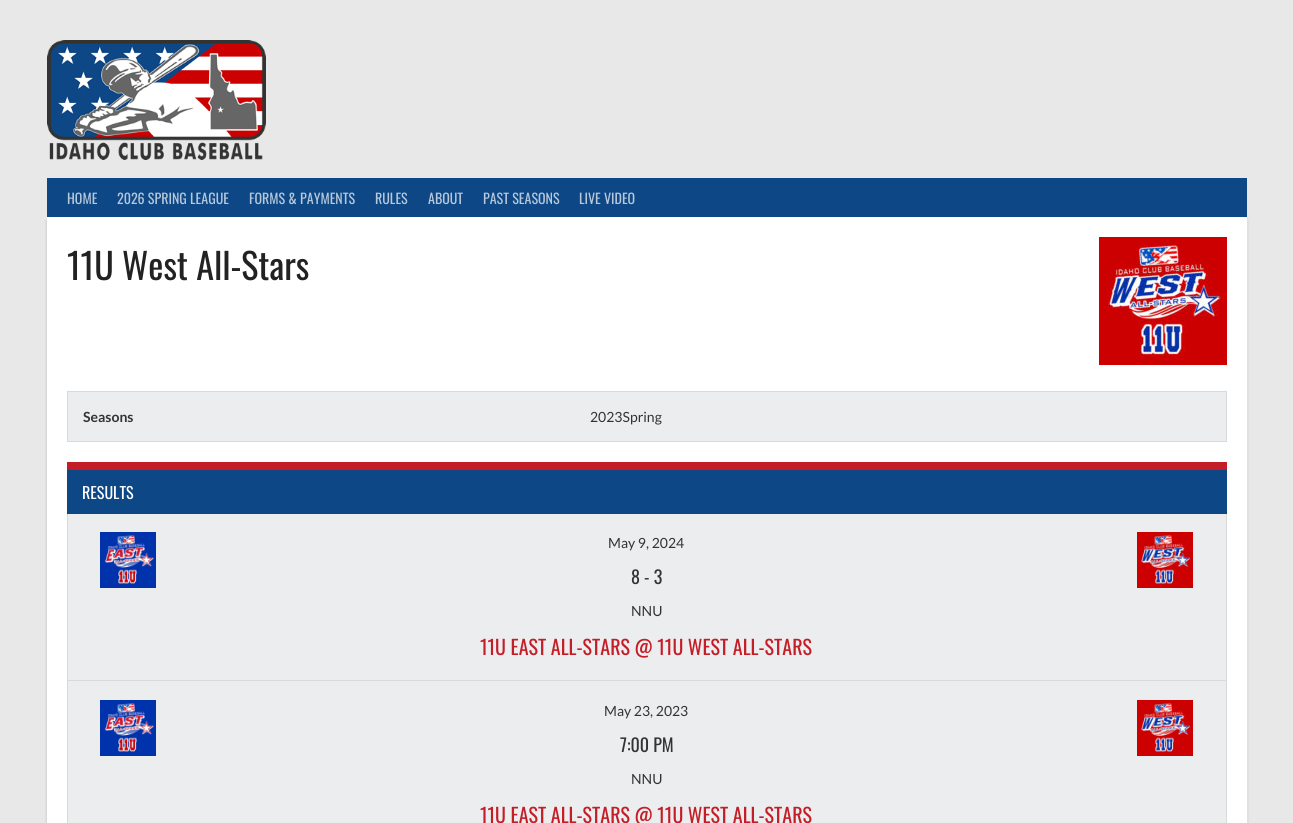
#include <cairo.h>
#include <math.h>
#include <stddef.h>

typedef struct { double x, y; const char *s; } line_t;
typedef struct { double x, y, w, h; unsigned color; } box_t;

static void ink(cairo_t *ctx, unsigned color) {
    cairo_set_source_rgb(ctx, (color >> 16) / 255.0, (color >> 8 & 255) / 255.0, (color & 255) / 255.0);
}

static void round_path(cairo_t *ctx, double x, double y, double w, double h, double r) {
    cairo_new_sub_path(ctx);
    cairo_arc(ctx, x + w - r, y + h - r, r, 0, M_PI / 2);
    cairo_arc(ctx, x + r, y + h - r, r, M_PI / 2, M_PI);
    cairo_arc(ctx, x + r, y + r, r, M_PI, 1.5 * M_PI);
    cairo_arc(ctx, x + w - r, y + r, r, 1.5 * M_PI, 2 * M_PI);
    cairo_close_path(ctx);
}

static void blur_box(cairo_t *ctx, double x, double y, double w, double h, double r, double blur, double alpha) {
    cairo_push_group_with_content(ctx, CAIRO_CONTENT_ALPHA);
    cairo_set_operator(ctx, CAIRO_OPERATOR_SOURCE);
    for (int i = 15; i >= -15 && fmin(w, h) + blur * i / 3 > 0; i -= 2) {
        double e = blur * i / 6;
        cairo_set_source_rgba(ctx, 0, 0, 0, alpha * erfc((i - 1) / 8.5) / 2);
        round_path(ctx, x - e, y - e, w + 2 * e, h + 2 * e, fmax(0, fmin(r + e + blur * .6, fmin(w, h) / 2 + e)));
        cairo_fill(ctx);
    }
    cairo_pattern_t *soft = cairo_pop_group(ctx);
    cairo_mask(ctx, soft);
    cairo_pattern_destroy(soft);
}

static void paste(cairo_t *ctx, const char *path, double x, double y, double w, double h) {
    cairo_surface_t *image = cairo_image_surface_create_from_png(path);
    cairo_save(ctx);
    cairo_set_source_surface(ctx, image, x, y);
    cairo_rectangle(ctx, x, y, w, h);
    cairo_fill(ctx);
    cairo_restore(ctx);
    cairo_surface_destroy(image);
}

int main(void) {
    cairo_surface_t *surface = cairo_image_surface_create(CAIRO_FORMAT_RGB24, 1293, 823);
    cairo_t *ctx = cairo_create(surface);
    cairo_font_options_t *options = cairo_font_options_create();
    cairo_font_options_set_hint_metrics(options, CAIRO_HINT_METRICS_OFF);
    cairo_font_options_set_hint_style(options, CAIRO_HINT_STYLE_NONE);
    cairo_set_font_options(ctx, options);
    cairo_set_miter_limit(ctx, 4);
    ink(ctx, 0xE8E8E8);
    cairo_paint(ctx);
    paste(ctx, "media/1.png", 47, 40, 219, 120);
    ink(ctx, 0x000000);
    blur_box(ctx, 47, 220, 1200, 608, 0, 1.5, 0.2);
    ink(ctx, 0x0D4785);
    cairo_rectangle(ctx, 47, 178, 1200, 39);
    cairo_fill(ctx);
    cairo_select_font_face(ctx, "Oswald", CAIRO_FONT_SLANT_NORMAL, CAIRO_FONT_WEIGHT_NORMAL);
    cairo_set_font_size(ctx, 14);
    ink(ctx, 0xB6C8DA);
    {
        static const line_t items[] = {
            {67, 204, "HOME"},
            {117, 204, "2026 SPRING LEAGUE"},
            {249, 204, "FORMS & PAYMENTS"},
            {375, 204, "RULES"},
            {428, 204, "ABOUT"},
            {483, 204, "PAST SEASONS"},
            {579, 204, "LIVE VIDEO"},
        };
        for (size_t i = 0; i < sizeof items / sizeof *items; i++) {
            cairo_move_to(ctx, items[i].x, items[i].y);
            cairo_show_text(ctx, items[i].s);
        }
    }
    ink(ctx, 0xFFFFFF);
    cairo_rectangle(ctx, 47, 217, 1200, 606);
    cairo_fill(ctx);
    ink(ctx, 0xE0E0E0);
    cairo_rectangle(ctx, 1247, 217, 1, 606);
    cairo_fill(ctx);
    cairo_set_font_size(ctx, 36);
    ink(ctx, 0x222222);
    cairo_move_to(ctx, 67, 280);
    cairo_show_text(ctx, "11U West All-Stars");
    paste(ctx, "media/2.png", 1099, 237, 128, 128);
    ink(ctx, 0xECEDEE);
    cairo_rectangle(ctx, 67.5, 391.5, 1159, 50);
    cairo_fill_preserve(ctx);
    ink(ctx, 0xD8D9DA);
    cairo_set_line_width(ctx, 1);
    cairo_stroke(ctx);
    cairo_select_font_face(ctx, "Lato", CAIRO_FONT_SLANT_NORMAL, CAIRO_FONT_WEIGHT_BOLD);
    cairo_set_font_size(ctx, 14);
    ink(ctx, 0x333333);
    cairo_move_to(ctx, 83, 422);
    cairo_show_text(ctx, "Seasons");
    cairo_select_font_face(ctx, "Lato", CAIRO_FONT_SLANT_NORMAL, CAIRO_FONT_WEIGHT_NORMAL);
    cairo_move_to(ctx, 590, 422);
    cairo_show_text(ctx, "2023Spring");
    {
        static const box_t items[] = {
            {1226, 513, 1, 310, 0xD8D9DA},
            {67, 513, 1, 310, 0xD8D9DA},
            {67, 470, 1160, 44, 0x0D4785},
            {67, 462, 1160, 8, 0xC51D27},
        };
        for (size_t i = 0; i < sizeof items / sizeof *items; i++) {
            ink(ctx, items[i].color);
            cairo_rectangle(ctx, items[i].x, items[i].y, items[i].w, items[i].h);
            cairo_fill(ctx);
        }
    }
    cairo_select_font_face(ctx, "Oswald", CAIRO_FONT_SLANT_NORMAL, CAIRO_FONT_WEIGHT_NORMAL);
    cairo_set_font_size(ctx, 16);
    ink(ctx, 0xFFFFFF);
    cairo_move_to(ctx, 82, 499);
    cairo_show_text(ctx, "RESULTS");
    ink(ctx, 0xECEDEE);
    cairo_rectangle(ctx, 68, 514, 1158, 309);
    cairo_fill(ctx);
    paste(ctx, "media/3.png", 100, 532, 56, 56);
    cairo_select_font_face(ctx, "Lato", CAIRO_FONT_SLANT_NORMAL, CAIRO_FONT_WEIGHT_NORMAL);
    cairo_set_font_size(ctx, 14);
    ink(ctx, 0x333333);
    cairo_move_to(ctx, 608, 548);
    cairo_show_text(ctx, "May 9, 2024");
    paste(ctx, "media/4.png", 1137, 532, 56, 56);
    cairo_select_font_face(ctx, "Oswald", CAIRO_FONT_SLANT_NORMAL, CAIRO_FONT_WEIGHT_NORMAL);
    cairo_set_font_size(ctx, 18);
    cairo_move_to(ctx, 631, 584);
    cairo_show_text(ctx, "8 - 3");
    cairo_select_font_face(ctx, "Lato", CAIRO_FONT_SLANT_NORMAL, CAIRO_FONT_WEIGHT_NORMAL);
    cairo_set_font_size(ctx, 14);
    cairo_move_to(ctx, 631, 616);
    cairo_show_text(ctx, "NNU");
    cairo_select_font_face(ctx, "Oswald", CAIRO_FONT_SLANT_NORMAL, CAIRO_FONT_WEIGHT_NORMAL);
    cairo_set_font_size(ctx, 20);
    ink(ctx, 0xC51D27);
    cairo_move_to(ctx, 480, 655);
    cairo_show_text(ctx, "11U EAST ALL-STARS @ 11U WEST ALL-STARS");
    ink(ctx, 0xD8D9DA);
    cairo_rectangle(ctx, 67, 680, 1160, 1);
    cairo_fill(ctx);
    paste(ctx, "media/3.png", 100, 700, 56, 56);
    cairo_select_font_face(ctx, "Lato", CAIRO_FONT_SLANT_NORMAL, CAIRO_FONT_WEIGHT_NORMAL);
    cairo_set_font_size(ctx, 14);
    ink(ctx, 0x333333);
    cairo_move_to(ctx, 604, 716);
    cairo_show_text(ctx, "May 23, 2023");
    paste(ctx, "media/4.png", 1137, 700, 56, 56);
    cairo_select_font_face(ctx, "Oswald", CAIRO_FONT_SLANT_NORMAL, CAIRO_FONT_WEIGHT_NORMAL);
    cairo_set_font_size(ctx, 18);
    cairo_move_to(ctx, 620, 752);
    cairo_show_text(ctx, "7:00 PM");
    cairo_select_font_face(ctx, "Lato", CAIRO_FONT_SLANT_NORMAL, CAIRO_FONT_WEIGHT_NORMAL);
    cairo_set_font_size(ctx, 14);
    cairo_move_to(ctx, 631, 784);
    cairo_show_text(ctx, "NNU");
    cairo_select_font_face(ctx, "Oswald", CAIRO_FONT_SLANT_NORMAL, CAIRO_FONT_WEIGHT_NORMAL);
    cairo_set_font_size(ctx, 20);
    ink(ctx, 0xC51D27);
    cairo_move_to(ctx, 480, 823);
    cairo_show_text(ctx, "11U EAST ALL-STARS @ 11U WEST ALL-STARS");
    cairo_surface_write_to_png(surface, "image.png");
    cairo_font_options_destroy(options);
    cairo_destroy(ctx);
    cairo_surface_destroy(surface);
    return 0;
}
